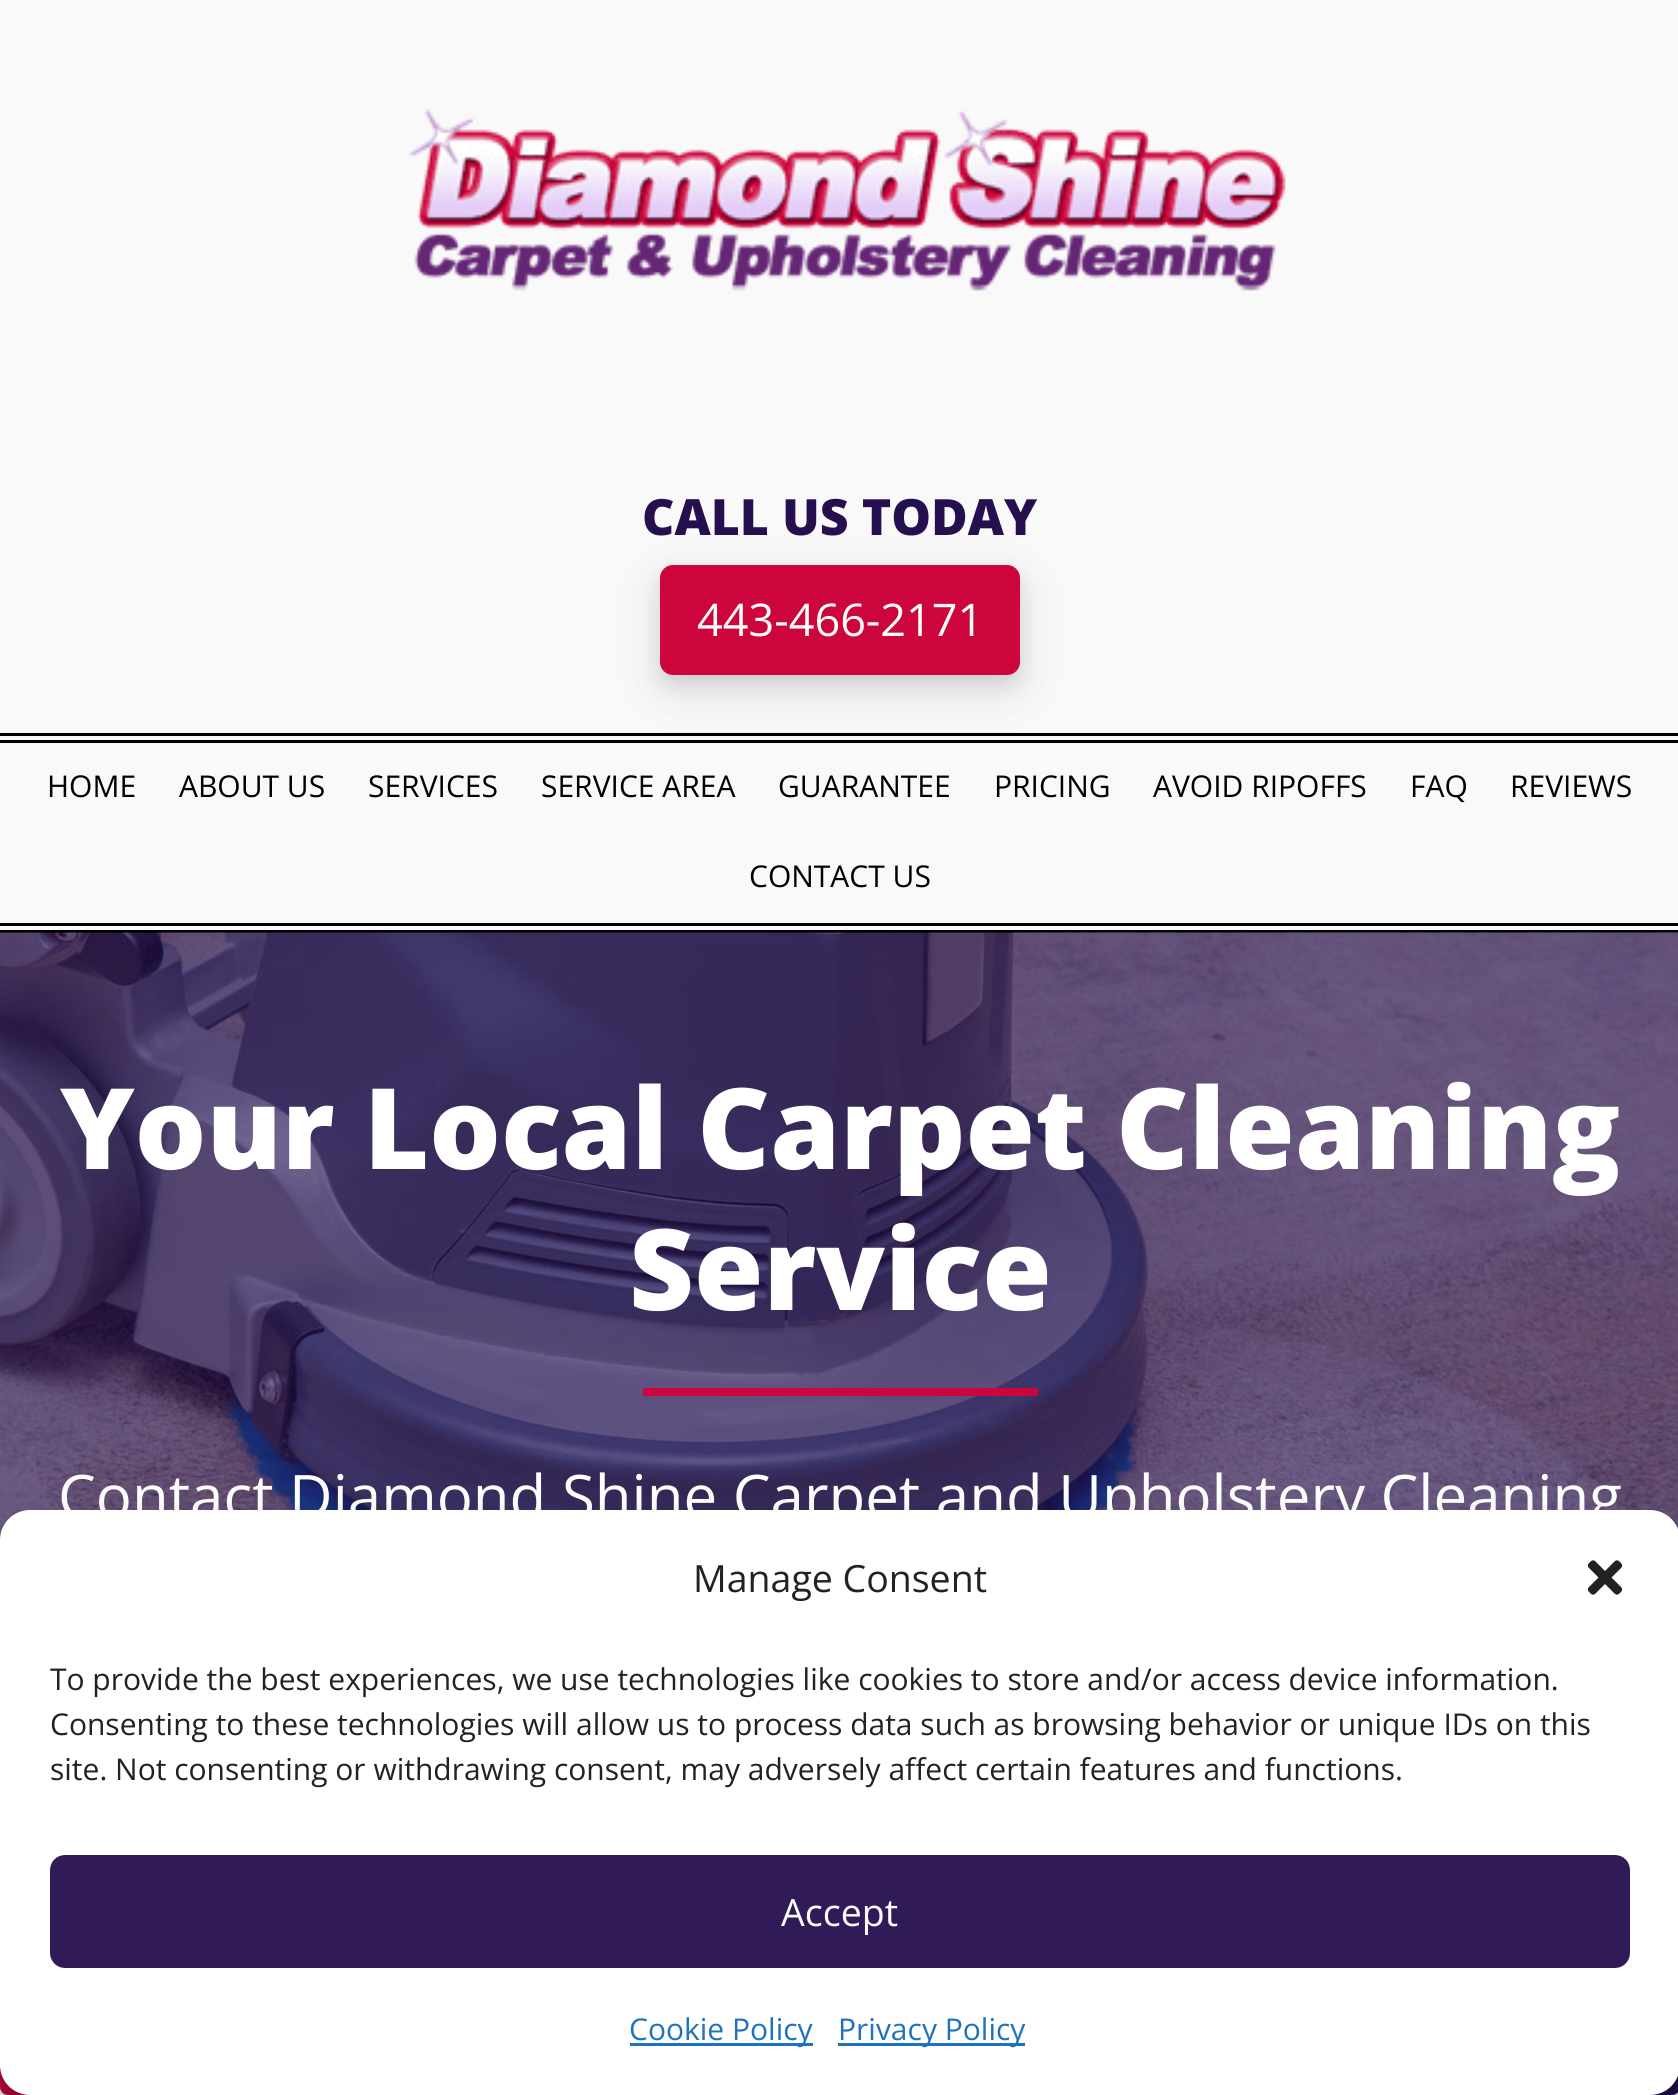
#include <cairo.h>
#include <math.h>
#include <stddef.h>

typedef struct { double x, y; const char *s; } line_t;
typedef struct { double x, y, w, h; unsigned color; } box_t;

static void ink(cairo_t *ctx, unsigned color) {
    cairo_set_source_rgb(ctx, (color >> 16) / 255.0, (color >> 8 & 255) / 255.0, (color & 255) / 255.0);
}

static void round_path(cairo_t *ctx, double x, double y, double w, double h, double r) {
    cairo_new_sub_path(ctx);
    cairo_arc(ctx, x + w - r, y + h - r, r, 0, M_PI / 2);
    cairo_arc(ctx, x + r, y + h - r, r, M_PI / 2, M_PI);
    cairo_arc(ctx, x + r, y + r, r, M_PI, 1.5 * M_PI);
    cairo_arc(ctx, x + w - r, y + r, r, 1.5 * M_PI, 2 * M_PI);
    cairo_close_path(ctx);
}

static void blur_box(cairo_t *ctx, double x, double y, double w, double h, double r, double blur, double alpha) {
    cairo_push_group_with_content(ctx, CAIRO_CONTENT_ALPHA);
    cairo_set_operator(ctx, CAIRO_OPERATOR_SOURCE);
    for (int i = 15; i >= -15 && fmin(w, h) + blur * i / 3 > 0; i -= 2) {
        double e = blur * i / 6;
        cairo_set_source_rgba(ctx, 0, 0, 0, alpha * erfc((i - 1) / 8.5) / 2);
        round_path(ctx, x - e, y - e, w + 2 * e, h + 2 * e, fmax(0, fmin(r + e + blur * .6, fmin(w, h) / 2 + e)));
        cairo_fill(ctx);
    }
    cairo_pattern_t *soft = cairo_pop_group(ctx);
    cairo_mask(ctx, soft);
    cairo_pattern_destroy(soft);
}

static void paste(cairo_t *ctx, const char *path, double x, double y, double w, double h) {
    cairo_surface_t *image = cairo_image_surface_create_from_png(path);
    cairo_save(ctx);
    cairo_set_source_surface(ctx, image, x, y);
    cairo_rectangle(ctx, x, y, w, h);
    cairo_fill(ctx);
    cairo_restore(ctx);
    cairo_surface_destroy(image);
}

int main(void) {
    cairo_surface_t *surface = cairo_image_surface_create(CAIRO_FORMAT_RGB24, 1678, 2095);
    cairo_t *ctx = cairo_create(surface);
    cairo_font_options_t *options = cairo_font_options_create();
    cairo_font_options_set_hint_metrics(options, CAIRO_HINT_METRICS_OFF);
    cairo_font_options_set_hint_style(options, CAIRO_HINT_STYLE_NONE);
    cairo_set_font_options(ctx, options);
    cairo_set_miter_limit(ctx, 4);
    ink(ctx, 0xFFFFFF);
    cairo_paint(ctx);
    ink(ctx, 0xF9F9F9);
    cairo_rectangle(ctx, 0, 0, 1678, 733);
    cairo_fill(ctx);
    paste(ctx, "media/1.png", 408, 108, 878, 183);
    cairo_select_font_face(ctx, "Open Sans ExtraBold", CAIRO_FONT_SLANT_NORMAL, CAIRO_FONT_WEIGHT_NORMAL);
    cairo_set_font_size(ctx, 50);
    ink(ctx, 0x250F4F);
    cairo_move_to(ctx, 642, 535);
    cairo_show_text(ctx, "CALL US TODAY");
    {
        static const box_t items[] = {
            {0, 736, 1678, 194, 0xF9F9F9},
            {0, 733, 1678, 3, 0x000000},
            {0, 740, 1678, 3, 0x000000},
        };
        for (size_t i = 0; i < sizeof items / sizeof *items; i++) {
            ink(ctx, items[i].color);
            cairo_rectangle(ctx, items[i].x, items[i].y, items[i].w, items[i].h);
            cairo_fill(ctx);
        }
    }
    ink(ctx, 0x000000);
    blur_box(ctx, 660, 580, 360, 110, 13, 25, 0.1);
    blur_box(ctx, 660, 575, 360, 110, 13, 10, 0.1);
    ink(ctx, 0xCC053C);
    round_path(ctx, 660, 565, 360, 110, 13);
    cairo_fill(ctx);
    cairo_select_font_face(ctx, "Open Sans", CAIRO_FONT_SLANT_NORMAL, CAIRO_FONT_WEIGHT_NORMAL);
    cairo_set_font_size(ctx, 45);
    ink(ctx, 0xFFFFFF);
    cairo_move_to(ctx, 697, 636);
    cairo_show_text(ctx, "443-466-2171");
    ink(ctx, 0x000000);
    cairo_rectangle(ctx, 0, 923, 1678, 3);
    cairo_fill(ctx);
    cairo_rectangle(ctx, 0, 930, 1678, 3);
    cairo_fill(ctx);
    cairo_set_font_size(ctx, 30);
    {
        static const line_t items[] = {
            {47, 797, "HOME"},
            {179, 797, "ABOUT US"},
            {368, 797, "SERVICES"},
            {541, 797, "SERVICE AREA"},
            {778, 797, "GUARANTEE"},
            {994, 797, "PRICING"},
            {1153, 797, "AVOID RIPOFFS"},
            {1410, 797, "FAQ"},
            {1510, 797, "REVIEWS"},
            {749, 887, "CONTACT US"},
        };
        for (size_t i = 0; i < sizeof items / sizeof *items; i++) {
            cairo_move_to(ctx, items[i].x, items[i].y);
            cairo_show_text(ctx, items[i].s);
        }
    }
    paste(ctx, "media/2.png", 0, 932, 1678, 608);
    cairo_select_font_face(ctx, "Open Sans ExtraBold", CAIRO_FONT_SLANT_NORMAL, CAIRO_FONT_WEIGHT_NORMAL);
    cairo_set_font_size(ctx, 112.5);
    ink(ctx, 0xFFFFFF);
    cairo_move_to(ctx, 60, 1169);
    cairo_show_text(ctx, "Your Local Carpet Cleaning");
    cairo_move_to(ctx, 629, 1310);
    cairo_show_text(ctx, "Service");
    ink(ctx, 0xCC053C);
    cairo_rectangle(ctx, 643, 1388, 395, 8);
    cairo_fill(ctx);
    cairo_select_font_face(ctx, "Open Sans", CAIRO_FONT_SLANT_NORMAL, CAIRO_FONT_WEIGHT_NORMAL);
    cairo_set_font_size(ctx, 60);
    ink(ctx, 0xFFFFFF);
    cairo_move_to(ctx, 58, 1518);
    cairo_show_text(ctx, "Contact Diamond Shine Carpet and Upholstery Cleaning");
    ink(ctx, 0xCC053C);
    round_path(ctx, 0, 1965, 840, 130, 8);
    cairo_fill(ctx);
    ink(ctx, 0x250F4F);
    round_path(ctx, 840, 1965, 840, 130, 8);
    cairo_fill(ctx);
    ink(ctx, 0x000000);
    blur_box(ctx, 0, 1525, 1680, 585, 30, 7.5, 0.23);
    blur_box(ctx, 0, 1535, 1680, 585, 30, 25, 0.19);
    ink(ctx, 0xFFFFFF);
    round_path(ctx, 0, 1510, 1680, 585, 30);
    cairo_fill(ctx);
    cairo_set_font_size(ctx, 37.5);
    ink(ctx, 0x222222);
    cairo_move_to(ctx, 693, 1592);
    cairo_show_text(ctx, "Manage Consent");
    paste(ctx, "media/3.png", 1587, 1560, 36, 35);
    cairo_set_font_size(ctx, 30);
    {
        static const line_t items[] = {
            {50, 1690, "To provide the best experiences, we use technologies like cookies to store and/or access device information."},
            {50, 1735, "Consenting to these technologies will allow us to process data such as browsing behavior or unique IDs on this"},
            {50, 1780, "site. Not consenting or withdrawing consent, may adversely affect certain features and functions."},
        };
        for (size_t i = 0; i < sizeof items / sizeof *items; i++) {
            cairo_move_to(ctx, items[i].x, items[i].y);
            cairo_show_text(ctx, items[i].s);
        }
    }
    ink(ctx, 0x301A58);
    round_path(ctx, 51.5, 1856.5, 1577, 110, 13.5);
    cairo_fill_preserve(ctx);
    cairo_set_line_width(ctx, 3);
    cairo_stroke(ctx);
    cairo_set_font_size(ctx, 37.5);
    ink(ctx, 0xFFFFFF);
    cairo_move_to(ctx, 781, 1926);
    cairo_show_text(ctx, "Accept");
    ink(ctx, 0x1E73BE);
    cairo_rectangle(ctx, 630, 2043, 183, 3);
    cairo_fill(ctx);
    cairo_set_font_size(ctx, 30);
    cairo_move_to(ctx, 629, 2040);
    cairo_show_text(ctx, "Cookie Policy");
    cairo_rectangle(ctx, 838, 2043, 187, 3);
    cairo_fill(ctx);
    cairo_move_to(ctx, 838, 2040);
    cairo_show_text(ctx, "Privacy Policy");
    cairo_surface_write_to_png(surface, "image.png");
    cairo_font_options_destroy(options);
    cairo_destroy(ctx);
    cairo_surface_destroy(surface);
    return 0;
}
